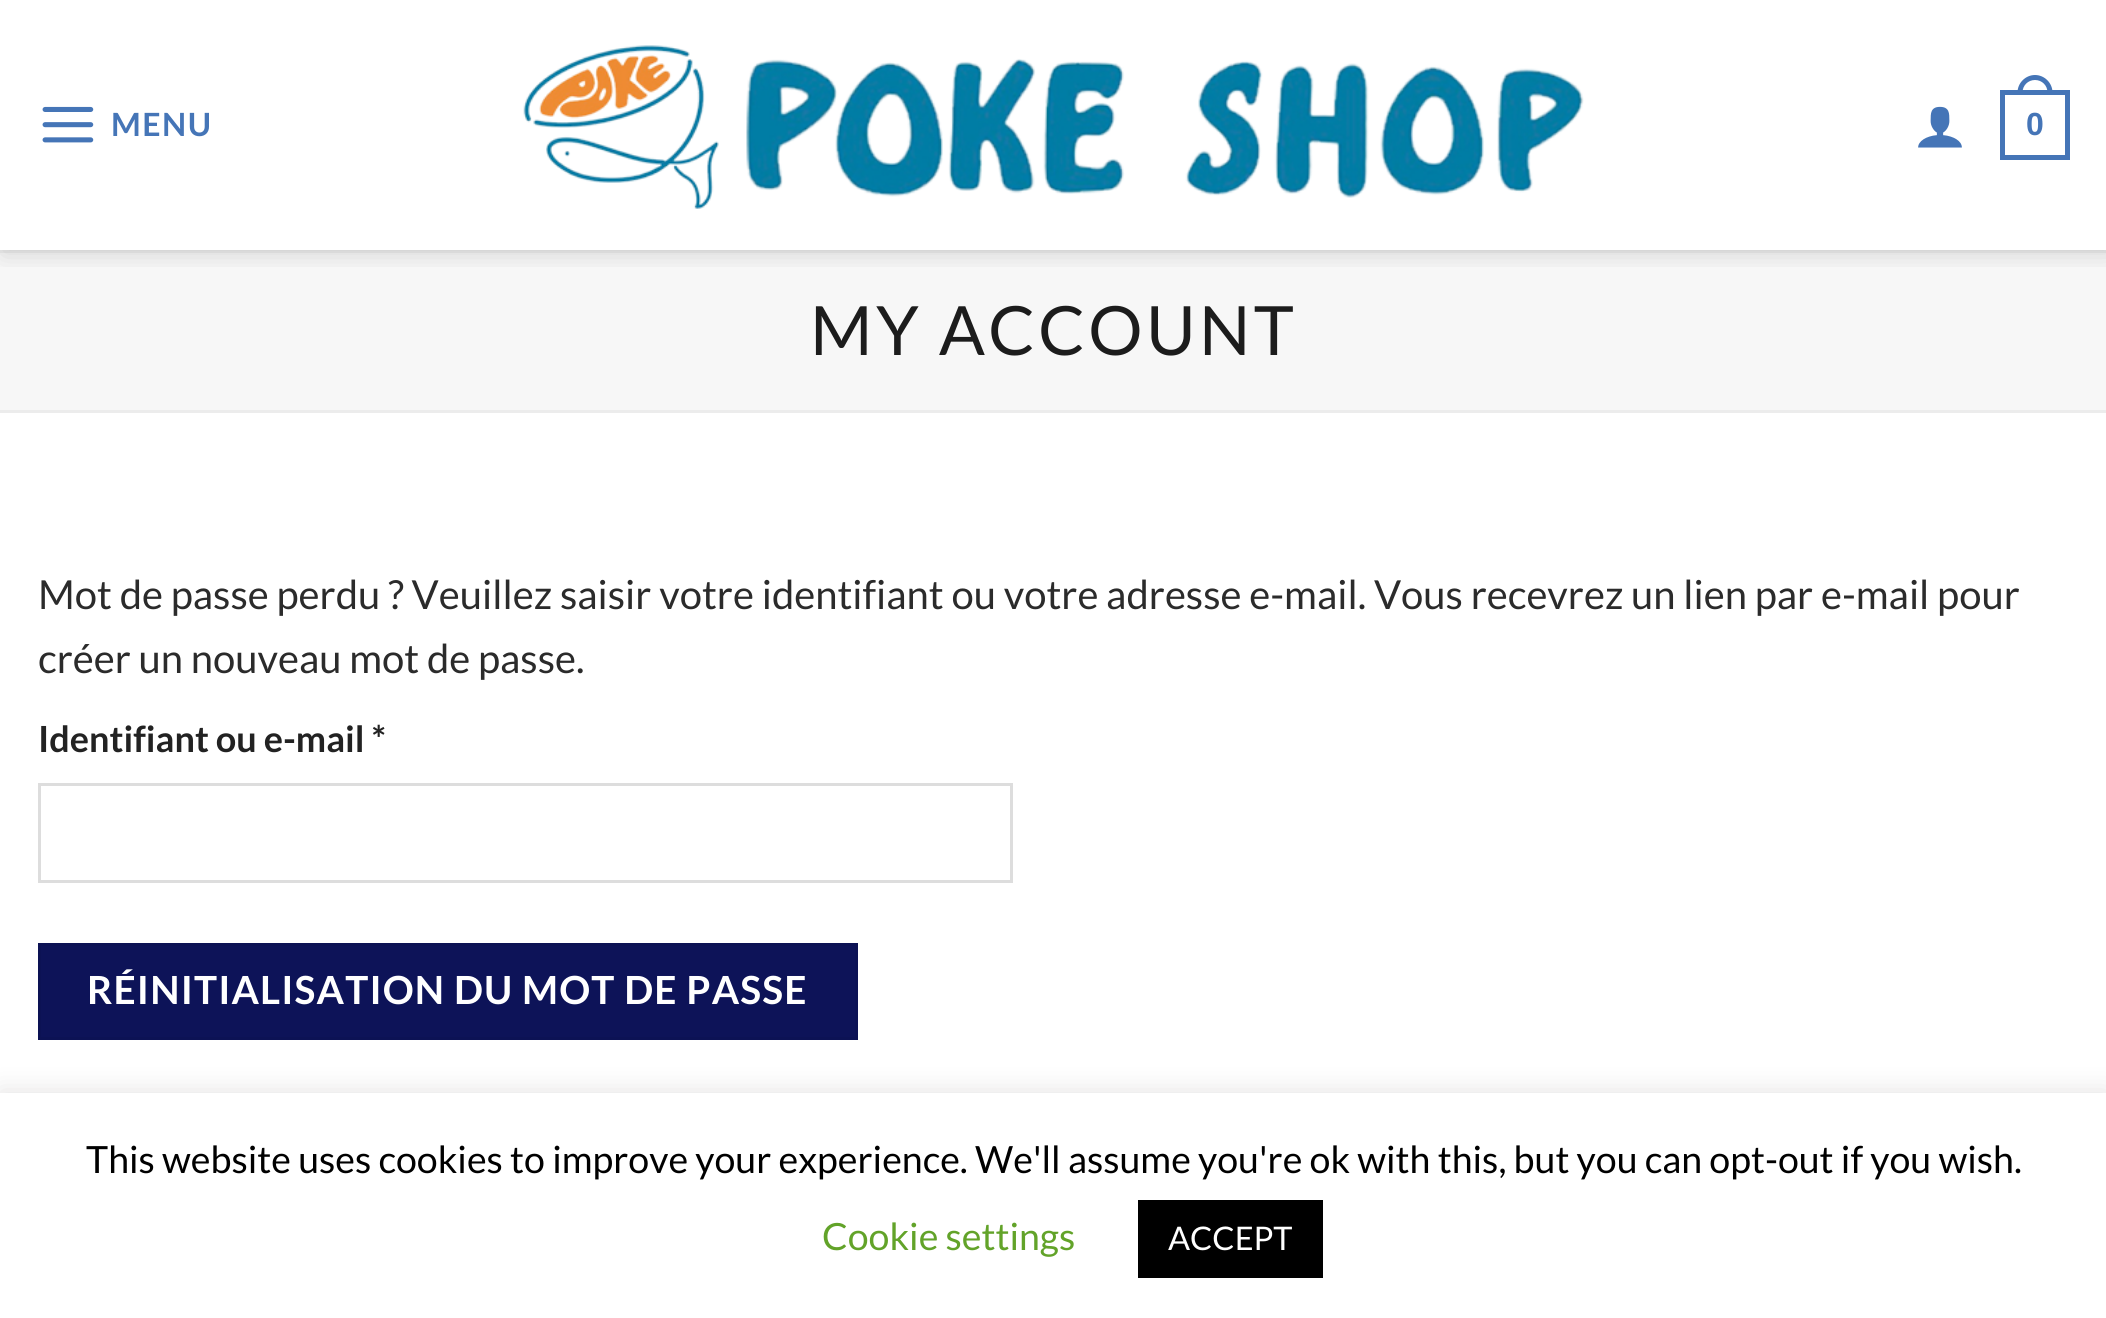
#include <cairo.h>
#include <math.h>
#include <stddef.h>


static void ink(cairo_t *ctx, unsigned color) {
    cairo_set_source_rgb(ctx, (color >> 16) / 255.0, (color >> 8 & 255) / 255.0, (color & 255) / 255.0);
}

static void write_spaced(cairo_t *ctx, double x, double y, const char *s, double letter, double word) {
    cairo_move_to(ctx, x, y);
    while (*s) {
        char ch[5] = {0};
        int n = 0;
        do ch[n++] = *s++; while ((*s & 0xC0) == 0x80);
        cairo_show_text(ctx, ch);
        cairo_rel_move_to(ctx, letter + word * (*ch == ' '), 0);
    }
}

static void round_path(cairo_t *ctx, double x, double y, double w, double h, double r) {
    cairo_new_sub_path(ctx);
    cairo_arc(ctx, x + w - r, y + h - r, r, 0, M_PI / 2);
    cairo_arc(ctx, x + r, y + h - r, r, M_PI / 2, M_PI);
    cairo_arc(ctx, x + r, y + r, r, M_PI, 1.5 * M_PI);
    cairo_arc(ctx, x + w - r, y + r, r, 1.5 * M_PI, 2 * M_PI);
    cairo_close_path(ctx);
}

static void blur_box(cairo_t *ctx, double x, double y, double w, double h, double r, double blur, double alpha) {
    cairo_push_group_with_content(ctx, CAIRO_CONTENT_ALPHA);
    cairo_set_operator(ctx, CAIRO_OPERATOR_SOURCE);
    for (int i = 15; i >= -15 && fmin(w, h) + blur * i / 3 > 0; i -= 2) {
        double e = blur * i / 6;
        cairo_set_source_rgba(ctx, 0, 0, 0, alpha * erfc((i - 1) / 8.5) / 2);
        round_path(ctx, x - e, y - e, w + 2 * e, h + 2 * e, fmax(0, fmin(r + e + blur * .6, fmin(w, h) / 2 + e)));
        cairo_fill(ctx);
    }
    cairo_pattern_t *soft = cairo_pop_group(ctx);
    cairo_mask(ctx, soft);
    cairo_pattern_destroy(soft);
}

static void paste(cairo_t *ctx, const char *path, double x, double y, double w, double h) {
    cairo_surface_t *image = cairo_image_surface_create_from_png(path);
    cairo_save(ctx);
    cairo_set_source_surface(ctx, image, x, y);
    cairo_rectangle(ctx, x, y, w, h);
    cairo_fill(ctx);
    cairo_restore(ctx);
    cairo_surface_destroy(image);
}

int main(void) {
    cairo_surface_t *surface = cairo_image_surface_create(CAIRO_FORMAT_RGB24, 2106, 1318);
    cairo_t *ctx = cairo_create(surface);
    cairo_font_options_t *options = cairo_font_options_create();
    cairo_font_options_set_hint_metrics(options, CAIRO_HINT_METRICS_OFF);
    cairo_font_options_set_hint_style(options, CAIRO_HINT_STYLE_NONE);
    cairo_set_font_options(ctx, options);
    cairo_set_miter_limit(ctx, 4);
    ink(ctx, 0xFFFFFF);
    cairo_paint(ctx);
    ink(ctx, 0xF7F7F7);
    cairo_rectangle(ctx, 0, 253, 2106, 157);
    cairo_fill(ctx);
    ink(ctx, 0xECECEC);
    cairo_rectangle(ctx, 0, 250, 2106, 3);
    cairo_fill(ctx);
    cairo_save(ctx);
    cairo_rectangle(ctx, 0, 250, 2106, 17);
    cairo_clip(ctx);
    ink(ctx, 0x000000);
    blur_box(ctx, 3, 3, 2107, 250, 0, 12.5, 0.15);
    cairo_restore(ctx);
    paste(ctx, "media/1.png", 42, 106, 52, 37);
    cairo_select_font_face(ctx, "Lato", CAIRO_FONT_SLANT_NORMAL, CAIRO_FONT_WEIGHT_BOLD);
    cairo_set_font_size(ctx, 32);
    ink(ctx, 0x4575B7);
    write_spaced(ctx, 111, 136, "MENU", 1.5, 0);
    paste(ctx, "media/2.png", 523, 45, 1061, 164);
    paste(ctx, "media/3.png", 1918, 106, 44, 42);
    cairo_rectangle(ctx, 2002.5, 92.5, 65, 65);
    cairo_set_line_width(ctx, 5);
    cairo_stroke(ctx);
    cairo_set_fill_rule(ctx, CAIRO_FILL_RULE_EVEN_ODD);
    cairo_new_path(ctx);
    cairo_move_to(ctx, 2035, 75);
    cairo_curve_to(ctx, 2044.5, 75, 2052.5, 83, 2052.5, 92.5);
    cairo_line_to(ctx, 2052.5, 95);
    cairo_line_to(ctx, 2017.5, 95);
    cairo_line_to(ctx, 2017.5, 92.5);
    cairo_curve_to(ctx, 2017.5, 83, 2025.5, 75, 2035, 75);
    cairo_close_path(ctx);
    cairo_move_to(ctx, 2035, 80);
    cairo_curve_to(ctx, 2042, 80, 2047.5, 85.5, 2047.5, 92.5);
    cairo_line_to(ctx, 2047.5, 95);
    cairo_line_to(ctx, 2022.5, 95);
    cairo_line_to(ctx, 2022.5, 92.5);
    cairo_curve_to(ctx, 2022.5, 85.5, 2028, 80, 2035, 80);
    cairo_close_path(ctx);
    cairo_fill(ctx);
    cairo_select_font_face(ctx, "Liberation Sans", CAIRO_FONT_SLANT_NORMAL, CAIRO_FONT_WEIGHT_BOLD);
    cairo_move_to(ctx, 2026, 135);
    cairo_show_text(ctx, "0");
    ink(ctx, 0xECECEC);
    cairo_rectangle(ctx, 0, 410, 2106, 3);
    cairo_fill(ctx);
    cairo_select_font_face(ctx, "Lato", CAIRO_FONT_SLANT_NORMAL, CAIRO_FONT_WEIGHT_NORMAL);
    cairo_set_font_size(ctx, 68);
    ink(ctx, 0x1C1C1C);
    write_spaced(ctx, 810, 355, "MY ACCOUNT", 3.4, 0);
    cairo_set_font_size(ctx, 40);
    ink(ctx, 0x2B2B2B);
    cairo_move_to(ctx, 38, 609);
    cairo_show_text(ctx, "Mot de passe perdu ? Veuillez saisir votre identifiant ou votre adresse e-mail. Vous recevrez un lien par e-mail pour");
    cairo_move_to(ctx, 38, 673);
    cairo_show_text(ctx, "créer un nouveau mot de passe.");
    cairo_select_font_face(ctx, "Lato", CAIRO_FONT_SLANT_NORMAL, CAIRO_FONT_WEIGHT_BOLD);
    cairo_set_font_size(ctx, 36);
    ink(ctx, 0x222222);
    cairo_move_to(ctx, 38, 752);
    cairo_show_text(ctx, "Identifiant ou e-mail *");
    cairo_rectangle(ctx, 39.5, 784.5, 972, 97);
    ink(ctx, 0xDDDDDD);
    cairo_set_line_width(ctx, 3);
    cairo_stroke(ctx);
    ink(ctx, 0x0D1358);
    cairo_rectangle(ctx, 39.5, 944.5, 817, 94);
    cairo_fill_preserve(ctx);
    ink(ctx, 0x0C1254);
    cairo_stroke(ctx);
    cairo_set_font_size(ctx, 38.75);
    ink(ctx, 0xFFFFFF);
    write_spaced(ctx, 87, 1004, "RÉINITIALISATION DU MOT DE PASSE", 1.15, 0);
    ink(ctx, 0xACABAB);
    blur_box(ctx, 0, 1090, 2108, 228, 0, 12.5, 0.3);
    ink(ctx, 0xFFFFFF);
    cairo_rectangle(ctx, 0, 1093, 2106, 225);
    cairo_fill(ctx);
    cairo_select_font_face(ctx, "Lato", CAIRO_FONT_SLANT_NORMAL, CAIRO_FONT_WEIGHT_NORMAL);
    cairo_set_font_size(ctx, 37.5);
    ink(ctx, 0x000000);
    cairo_move_to(ctx, 86, 1173);
    cairo_show_text(ctx, "This website uses cookies to improve your experience. We'll assume you're ok with this, but you can opt-out if you wish.");
    ink(ctx, 0x62A329);
    cairo_move_to(ctx, 822, 1250);
    cairo_show_text(ctx, "Cookie settings");
    ink(ctx, 0x000000);
    cairo_rectangle(ctx, 1138, 1200, 185, 78);
    cairo_fill(ctx);
    cairo_set_font_size(ctx, 32.5);
    ink(ctx, 0xFFFFFF);
    cairo_move_to(ctx, 1168, 1250);
    cairo_show_text(ctx, "ACCEPT");
    cairo_surface_write_to_png(surface, "image.png");
    cairo_font_options_destroy(options);
    cairo_destroy(ctx);
    cairo_surface_destroy(surface);
    return 0;
}
